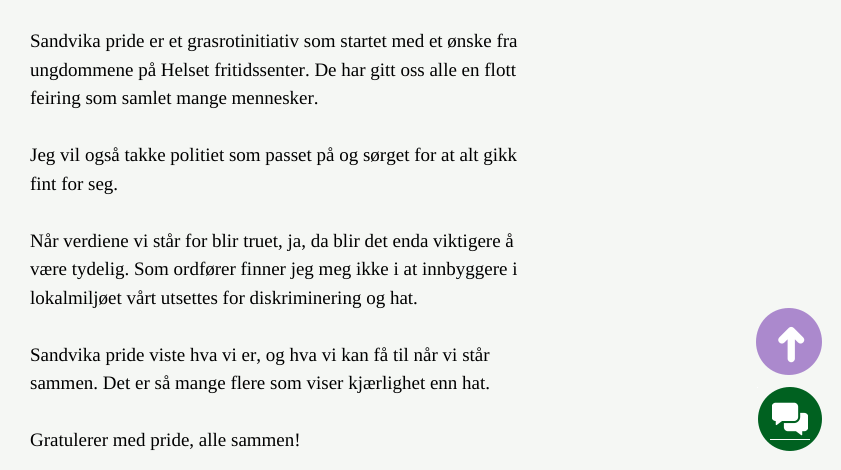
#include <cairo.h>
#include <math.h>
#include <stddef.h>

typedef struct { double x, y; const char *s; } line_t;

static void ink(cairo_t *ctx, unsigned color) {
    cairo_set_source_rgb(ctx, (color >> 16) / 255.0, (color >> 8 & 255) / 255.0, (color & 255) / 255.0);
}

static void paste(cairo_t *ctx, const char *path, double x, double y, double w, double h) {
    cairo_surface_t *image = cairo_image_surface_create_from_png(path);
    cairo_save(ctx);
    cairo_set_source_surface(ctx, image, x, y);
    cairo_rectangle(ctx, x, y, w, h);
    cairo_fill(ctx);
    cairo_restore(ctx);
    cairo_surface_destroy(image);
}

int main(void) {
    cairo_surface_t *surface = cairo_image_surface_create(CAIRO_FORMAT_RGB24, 841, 470);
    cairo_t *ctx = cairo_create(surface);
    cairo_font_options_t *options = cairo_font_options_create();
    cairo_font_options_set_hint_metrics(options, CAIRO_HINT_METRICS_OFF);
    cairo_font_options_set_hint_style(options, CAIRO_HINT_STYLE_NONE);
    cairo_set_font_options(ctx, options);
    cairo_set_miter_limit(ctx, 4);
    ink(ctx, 0xF5F7F4);
    cairo_paint(ctx);
    cairo_select_font_face(ctx, "Liberation Serif", CAIRO_FONT_SLANT_NORMAL, CAIRO_FONT_WEIGHT_NORMAL);
    cairo_set_font_size(ctx, 19);
    ink(ctx, 0x000000);
    {
        static const line_t items[] = {
            {30, 47, "Sandvika pride er et grasrotinitiativ som startet med et ønske fra"},
            {30, 76, "ungdommene på Helset fritidssenter. De har gitt oss alle en flott"},
            {30, 104, "feiring som samlet mange mennesker."},
            {30, 161, "Jeg vil også takke politiet som passet på og sørget for at alt gikk"},
            {30, 190, "fint for seg."},
            {30, 247, "Når verdiene vi står for blir truet, ja, da blir det enda viktigere å"},
            {30, 275, "være tydelig. Som ordfører finner jeg meg ikke i at innbyggere i"},
            {30, 304, "lokalmiljøet vårt utsettes for diskriminering og hat."},
            {30, 361, "Sandvika pride viste hva vi er, og hva vi kan få til når vi står"},
            {30, 389, "sammen. Det er så mange flere som viser kjærlighet enn hat."},
            {30, 446, "Gratulerer med pride, alle sammen!"},
        };
        for (size_t i = 0; i < sizeof items / sizeof *items; i++) {
            cairo_move_to(ctx, items[i].x, items[i].y);
            cairo_show_text(ctx, items[i].s);
        }
    }
    ink(ctx, 0xAB89CD);
    cairo_new_path(ctx);
    cairo_move_to(ctx, 756, 342);
    cairo_curve_to(ctx, 756, 323, 770, 308, 789, 308);
    cairo_curve_to(ctx, 807, 308, 822, 323, 822, 342);
    cairo_curve_to(ctx, 822, 360, 807, 375, 789, 375);
    cairo_curve_to(ctx, 770, 375, 756, 360, 756, 342);
    cairo_close_path(ctx);
    cairo_fill(ctx);
    cairo_select_font_face(ctx, "DejaVu Sans", CAIRO_FONT_SLANT_NORMAL, CAIRO_FONT_WEIGHT_BOLD);
    cairo_set_font_size(ctx, 48);
    ink(ctx, 0xFFFFFF);
    cairo_save(ctx);
    cairo_translate(ctx, 807, 365);
    cairo_rotate(ctx, -90 * M_PI / 180);
    cairo_move_to(ctx, 0, 0);
    cairo_show_text(ctx, "➜");
    cairo_restore(ctx);
    ink(ctx, 0x006120);
    cairo_new_path(ctx);
    cairo_arc(ctx, 790, 419, 32, 0, 2 * M_PI);
    cairo_fill(ctx);
    ink(ctx, 0xFFFFFF);
    cairo_rectangle(ctx, 770, 439, 40, 1);
    cairo_fill(ctx);
    cairo_rectangle(ctx, 757, 387, 1, 1);
    cairo_fill(ctx);
    paste(ctx, "media/1.png", 772, 402, 36, 34);
    cairo_surface_write_to_png(surface, "image.png");
    cairo_font_options_destroy(options);
    cairo_destroy(ctx);
    cairo_surface_destroy(surface);
    return 0;
}
